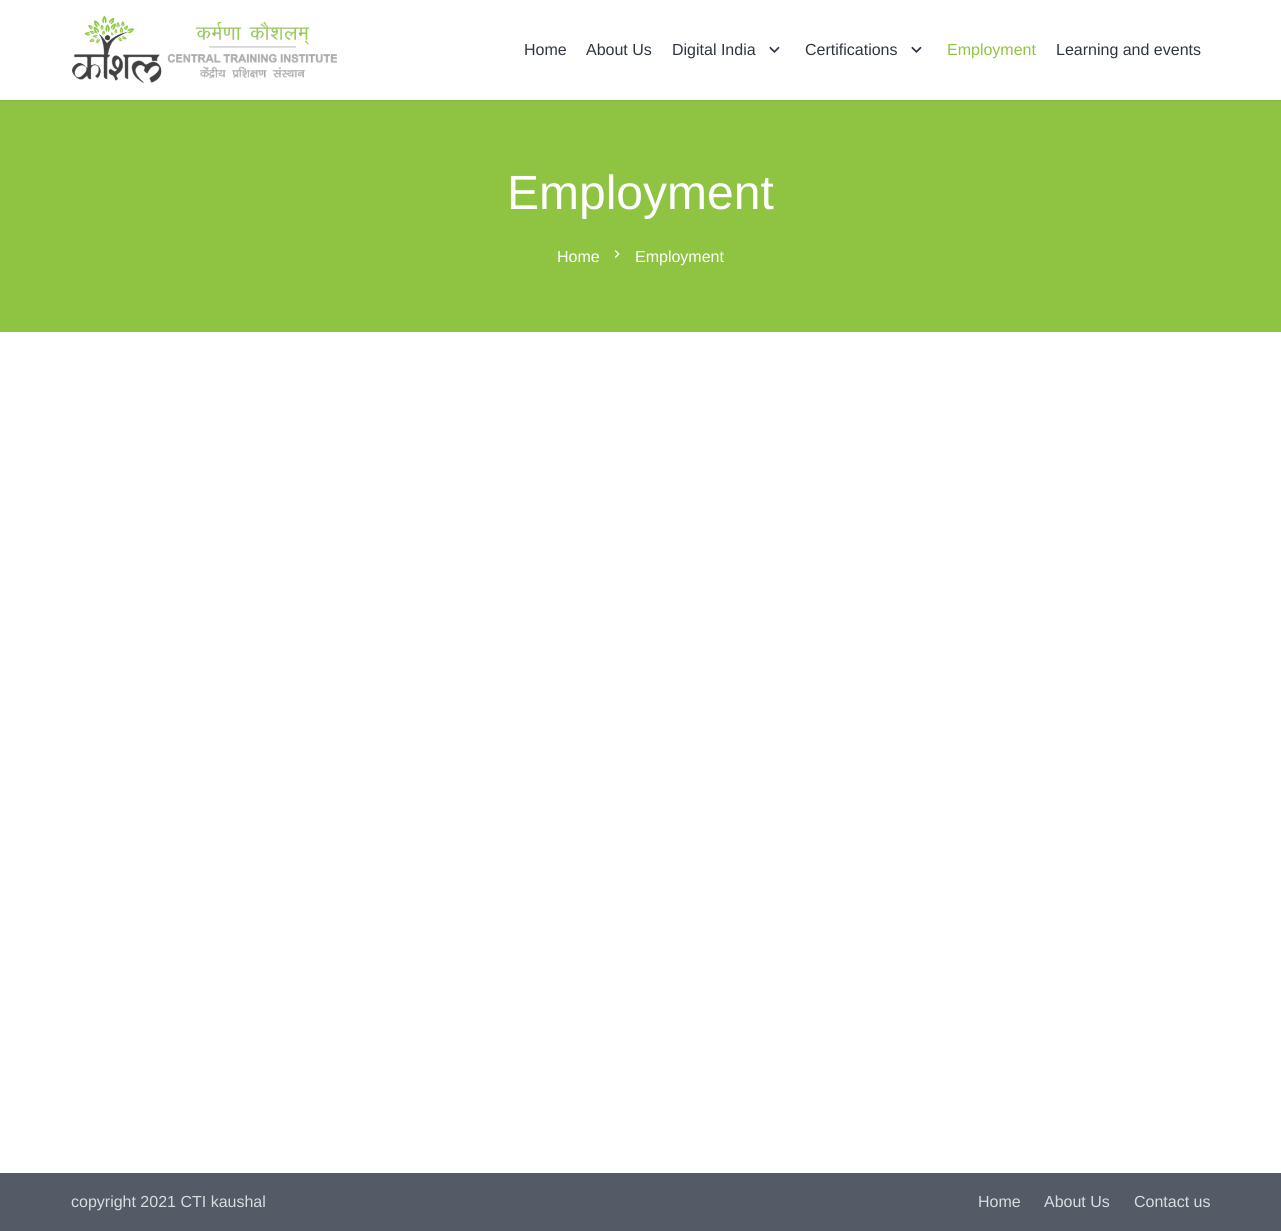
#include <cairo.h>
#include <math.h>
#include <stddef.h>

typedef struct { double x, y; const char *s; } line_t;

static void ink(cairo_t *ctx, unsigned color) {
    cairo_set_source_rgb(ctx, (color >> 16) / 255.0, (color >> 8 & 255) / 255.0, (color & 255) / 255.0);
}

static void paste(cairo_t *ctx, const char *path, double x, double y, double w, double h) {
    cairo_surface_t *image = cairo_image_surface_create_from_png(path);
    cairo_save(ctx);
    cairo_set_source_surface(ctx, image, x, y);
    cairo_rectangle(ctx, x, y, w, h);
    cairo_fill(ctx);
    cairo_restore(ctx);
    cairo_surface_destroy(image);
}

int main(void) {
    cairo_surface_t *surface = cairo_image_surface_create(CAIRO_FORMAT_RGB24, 1281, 1231);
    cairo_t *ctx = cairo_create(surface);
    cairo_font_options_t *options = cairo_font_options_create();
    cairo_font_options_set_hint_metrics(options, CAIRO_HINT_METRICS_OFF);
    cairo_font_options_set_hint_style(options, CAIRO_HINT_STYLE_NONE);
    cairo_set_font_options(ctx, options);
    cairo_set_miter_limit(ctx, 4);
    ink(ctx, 0xFFFFFF);
    cairo_paint(ctx);
    ink(ctx, 0x84B43D);
    cairo_rectangle(ctx, 0, 100, 1281, 1);
    cairo_fill(ctx);
    paste(ctx, "media/1.png", 71, 15, 266, 69);
    cairo_select_font_face(ctx, "Liberation Sans", CAIRO_FONT_SLANT_NORMAL, CAIRO_FONT_WEIGHT_NORMAL);
    cairo_set_font_size(ctx, 16);
    ink(ctx, 0x303640);
    {
        static const line_t items[] = {
            {524, 55, "Home"},
            {586, 55, "About Us"},
            {672, 55, "Digital India"},
        };
        for (size_t i = 0; i < sizeof items / sizeof *items; i++) {
            cairo_move_to(ctx, items[i].x, items[i].y);
            cairo_show_text(ctx, items[i].s);
        }
    }
    paste(ctx, "media/2.png", 769, 46, 11, 7);
    cairo_move_to(ctx, 805, 55);
    cairo_show_text(ctx, "Certifications");
    paste(ctx, "media/2.png", 911, 46, 11, 7);
    ink(ctx, 0x8FC442);
    cairo_move_to(ctx, 947, 55);
    cairo_show_text(ctx, "Employment");
    ink(ctx, 0x303640);
    cairo_move_to(ctx, 1056, 55);
    cairo_show_text(ctx, "Learning and events");
    ink(ctx, 0x8FC442);
    cairo_rectangle(ctx, 0, 101, 1281, 231);
    cairo_fill(ctx);
    cairo_set_font_size(ctx, 48);
    ink(ctx, 0xFFFFFF);
    cairo_move_to(ctx, 507, 209);
    cairo_show_text(ctx, "Employment");
    cairo_set_font_size(ctx, 16);
    cairo_move_to(ctx, 557, 262);
    cairo_show_text(ctx, "Home");
    paste(ctx, "media/3.png", 614, 250, 6, 8);
    cairo_move_to(ctx, 635, 262);
    cairo_show_text(ctx, "Employment");
    ink(ctx, 0x545A66);
    cairo_rectangle(ctx, 0, 1173, 1281, 58);
    cairo_fill(ctx);
    ink(ctx, 0xD7DDE0);
    {
        static const line_t items[] = {
            {71, 1207, "copyright 2021 CTI kaushal"},
            {978, 1207, "Home"},
            {1044, 1207, "About Us"},
            {1134, 1207, "Contact us"},
        };
        for (size_t i = 0; i < sizeof items / sizeof *items; i++) {
            cairo_move_to(ctx, items[i].x, items[i].y);
            cairo_show_text(ctx, items[i].s);
        }
    }
    cairo_surface_write_to_png(surface, "image.png");
    cairo_font_options_destroy(options);
    cairo_destroy(ctx);
    cairo_surface_destroy(surface);
    return 0;
}
